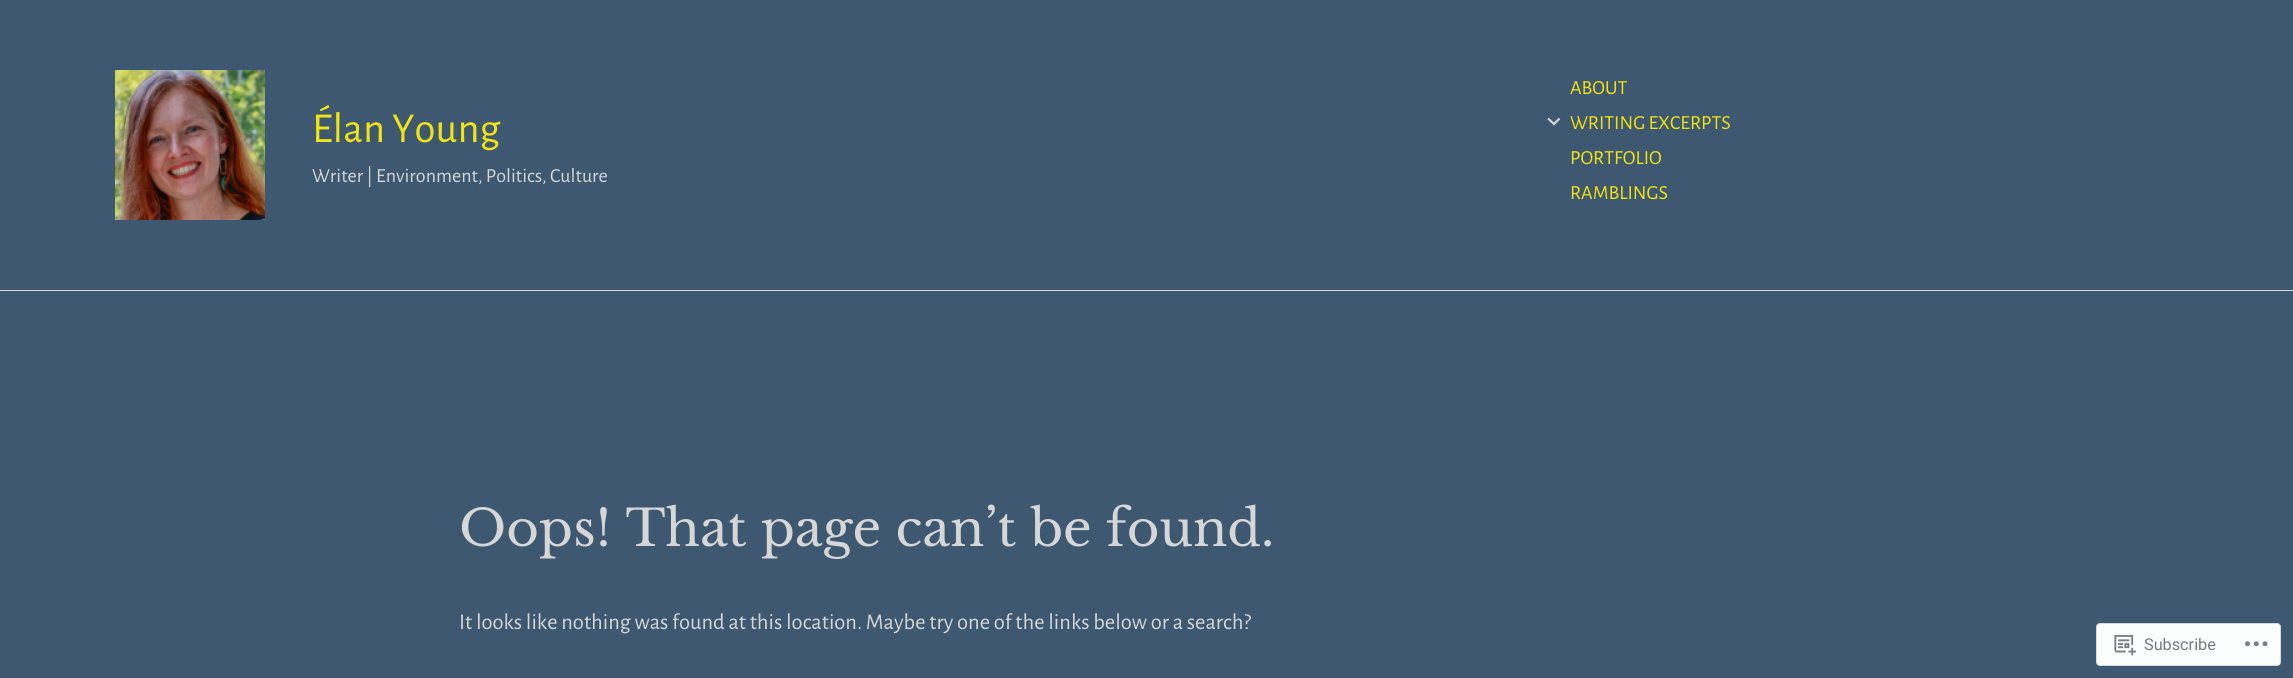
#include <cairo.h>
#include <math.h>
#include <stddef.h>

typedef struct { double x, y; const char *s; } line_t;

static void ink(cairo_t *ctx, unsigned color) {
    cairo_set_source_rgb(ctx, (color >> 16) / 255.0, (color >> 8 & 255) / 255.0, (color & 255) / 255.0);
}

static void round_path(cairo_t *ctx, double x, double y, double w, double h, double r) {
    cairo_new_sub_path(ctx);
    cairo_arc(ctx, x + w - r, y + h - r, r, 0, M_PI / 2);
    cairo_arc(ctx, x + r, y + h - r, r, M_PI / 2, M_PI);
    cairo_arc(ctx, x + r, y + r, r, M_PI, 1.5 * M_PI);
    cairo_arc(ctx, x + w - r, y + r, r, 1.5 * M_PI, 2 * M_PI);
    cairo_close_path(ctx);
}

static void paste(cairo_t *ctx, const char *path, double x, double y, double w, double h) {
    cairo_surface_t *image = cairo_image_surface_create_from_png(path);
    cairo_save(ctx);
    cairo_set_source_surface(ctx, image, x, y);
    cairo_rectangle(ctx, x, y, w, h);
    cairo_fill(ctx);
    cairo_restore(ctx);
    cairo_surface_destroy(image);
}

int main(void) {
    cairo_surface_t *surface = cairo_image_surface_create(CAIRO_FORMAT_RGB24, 2293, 678);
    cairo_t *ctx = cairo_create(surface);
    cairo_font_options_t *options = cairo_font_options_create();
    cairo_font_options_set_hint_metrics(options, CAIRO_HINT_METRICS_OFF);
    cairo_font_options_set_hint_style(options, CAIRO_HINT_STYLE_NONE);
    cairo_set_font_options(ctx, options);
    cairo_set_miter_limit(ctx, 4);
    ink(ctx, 0x3E5871);
    cairo_paint(ctx);
    paste(ctx, "media/1.png", 115, 70, 150, 150);
    cairo_select_font_face(ctx, "Alegreya Sans", CAIRO_FONT_SLANT_NORMAL, CAIRO_FONT_WEIGHT_NORMAL);
    cairo_set_font_size(ctx, 42.75);
    ink(ctx, 0xF2E313);
    cairo_move_to(ctx, 312, 142);
    cairo_show_text(ctx, "Élan Young");
    cairo_set_font_size(ctx, 20);
    ink(ctx, 0xD6D6D6);
    cairo_move_to(ctx, 312, 182);
    cairo_show_text(ctx, "Writer | Environment, Politics, Culture");
    ink(ctx, 0xF2E313);
    cairo_move_to(ctx, 1570, 94);
    cairo_show_text(ctx, "ABOUT");
    cairo_new_path(ctx);
    cairo_move_to(ctx, 1548, 118.5);
    cairo_line_to(ctx, 1554, 124);
    cairo_line_to(ctx, 1559.5, 118.5);
    ink(ctx, 0xD6D6D6);
    cairo_set_line_width(ctx, 2.2);
    cairo_stroke(ctx);
    ink(ctx, 0xF2E313);
    {
        static const line_t items[] = {
            {1570, 129, "WRITING EXCERPTS"},
            {1570, 164, "PORTFOLIO"},
            {1570, 199, "RAMBLINGS"},
        };
        for (size_t i = 0; i < sizeof items / sizeof *items; i++) {
            cairo_move_to(ctx, items[i].x, items[i].y);
            cairo_show_text(ctx, items[i].s);
        }
    }
    ink(ctx, 0xD6D6D6);
    cairo_rectangle(ctx, 0, 290, 2293, 1);
    cairo_fill(ctx);
    cairo_select_font_face(ctx, "Libre Baskerville", CAIRO_FONT_SLANT_NORMAL, CAIRO_FONT_WEIGHT_NORMAL);
    cairo_set_font_size(ctx, 50);
    cairo_move_to(ctx, 459, 546);
    cairo_show_text(ctx, "Oops! That page can’t be found.");
    cairo_select_font_face(ctx, "Alegreya Sans", CAIRO_FONT_SLANT_NORMAL, CAIRO_FONT_WEIGHT_NORMAL);
    cairo_set_font_size(ctx, 22.5);
    cairo_move_to(ctx, 459, 629);
    cairo_show_text(ctx, "It looks like nothing was found at this location. Maybe try one of the links below or a search?");
    ink(ctx, 0xFBFCFC);
    round_path(ctx, 2096.5, 623.5, 184, 42, 3.5);
    cairo_fill_preserve(ctx);
    ink(ctx, 0xD9D9DC);
    cairo_set_line_width(ctx, 1);
    cairo_stroke(ctx);
    paste(ctx, "media/2.png", 2114, 635, 22, 21);
    cairo_select_font_face(ctx, "Roboto", CAIRO_FONT_SLANT_NORMAL, CAIRO_FONT_WEIGHT_NORMAL);
    cairo_set_font_size(ctx, 16.25);
    ink(ctx, 0x777B82);
    cairo_move_to(ctx, 2144, 650);
    cairo_show_text(ctx, "Subscribe");
    paste(ctx, "media/3.png", 2245, 641, 23, 6);
    cairo_surface_write_to_png(surface, "image.png");
    cairo_font_options_destroy(options);
    cairo_destroy(ctx);
    cairo_surface_destroy(surface);
    return 0;
}
